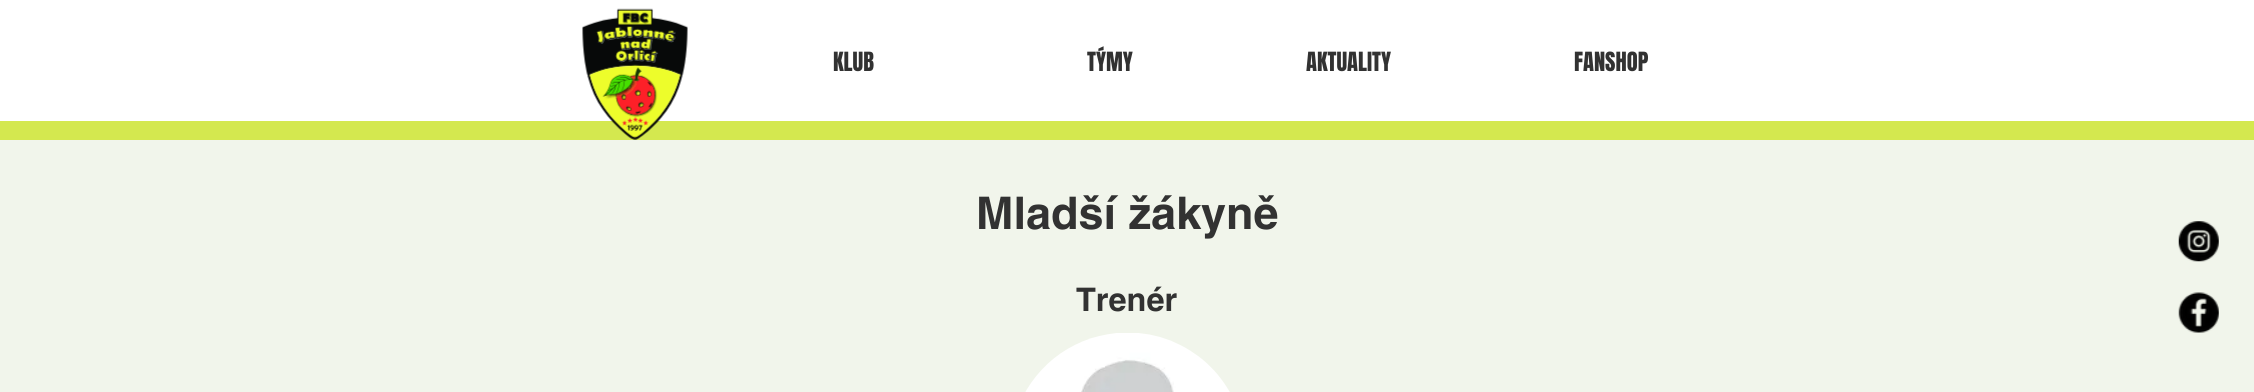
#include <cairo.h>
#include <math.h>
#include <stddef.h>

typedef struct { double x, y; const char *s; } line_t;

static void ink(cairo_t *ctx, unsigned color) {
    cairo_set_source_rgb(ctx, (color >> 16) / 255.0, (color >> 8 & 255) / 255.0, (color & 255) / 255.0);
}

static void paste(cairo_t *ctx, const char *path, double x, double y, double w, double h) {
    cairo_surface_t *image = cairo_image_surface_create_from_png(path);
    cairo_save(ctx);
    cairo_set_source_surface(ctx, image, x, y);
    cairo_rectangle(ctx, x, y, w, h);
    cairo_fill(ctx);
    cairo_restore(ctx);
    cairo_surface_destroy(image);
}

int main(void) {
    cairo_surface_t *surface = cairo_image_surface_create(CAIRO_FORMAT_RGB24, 2254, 392);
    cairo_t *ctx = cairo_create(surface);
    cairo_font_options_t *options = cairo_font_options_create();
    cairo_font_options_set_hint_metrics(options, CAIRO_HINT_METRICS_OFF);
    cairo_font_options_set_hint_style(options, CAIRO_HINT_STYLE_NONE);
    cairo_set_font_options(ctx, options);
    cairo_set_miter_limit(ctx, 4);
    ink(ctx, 0xF1F5EB);
    cairo_paint(ctx);
    ink(ctx, 0xFFFFFF);
    cairo_rectangle(ctx, 0, 0, 2254, 121);
    cairo_fill(ctx);
    ink(ctx, 0xD4E84F);
    cairo_rectangle(ctx, 0, 121, 2254, 19);
    cairo_fill(ctx);
    paste(ctx, "media/1.png", 582, 8, 106, 132);
    cairo_select_font_face(ctx, "Anton", CAIRO_FONT_SLANT_NORMAL, CAIRO_FONT_WEIGHT_NORMAL);
    cairo_set_font_size(ctx, 22.5);
    ink(ctx, 0x323232);
    {
        static const line_t items[] = {
            {833, 71, "KLUB"},
            {1087, 71, "TÝMY"},
            {1306, 71, "AKTUALITY"},
            {1574, 71, "FANSHOP"},
        };
        for (size_t i = 0; i < sizeof items / sizeof *items; i++) {
            cairo_move_to(ctx, items[i].x, items[i].y);
            cairo_show_text(ctx, items[i].s);
        }
    }
    cairo_select_font_face(ctx, "helvetica", CAIRO_FONT_SLANT_NORMAL, CAIRO_FONT_WEIGHT_BOLD);
    cairo_set_font_size(ctx, 45);
    cairo_move_to(ctx, 976, 229);
    cairo_show_text(ctx, "Mladší žákyně");
    cairo_set_font_size(ctx, 32.5);
    cairo_move_to(ctx, 1076, 311);
    cairo_show_text(ctx, "Trenér");
    paste(ctx, "media/2.png", 1025, 333, 205, 59);
    paste(ctx, "media/3.png", 2178, 221, 41, 41);
    paste(ctx, "media/4.png", 2178, 292, 41, 41);
    cairo_surface_write_to_png(surface, "image.png");
    cairo_font_options_destroy(options);
    cairo_destroy(ctx);
    cairo_surface_destroy(surface);
    return 0;
}
